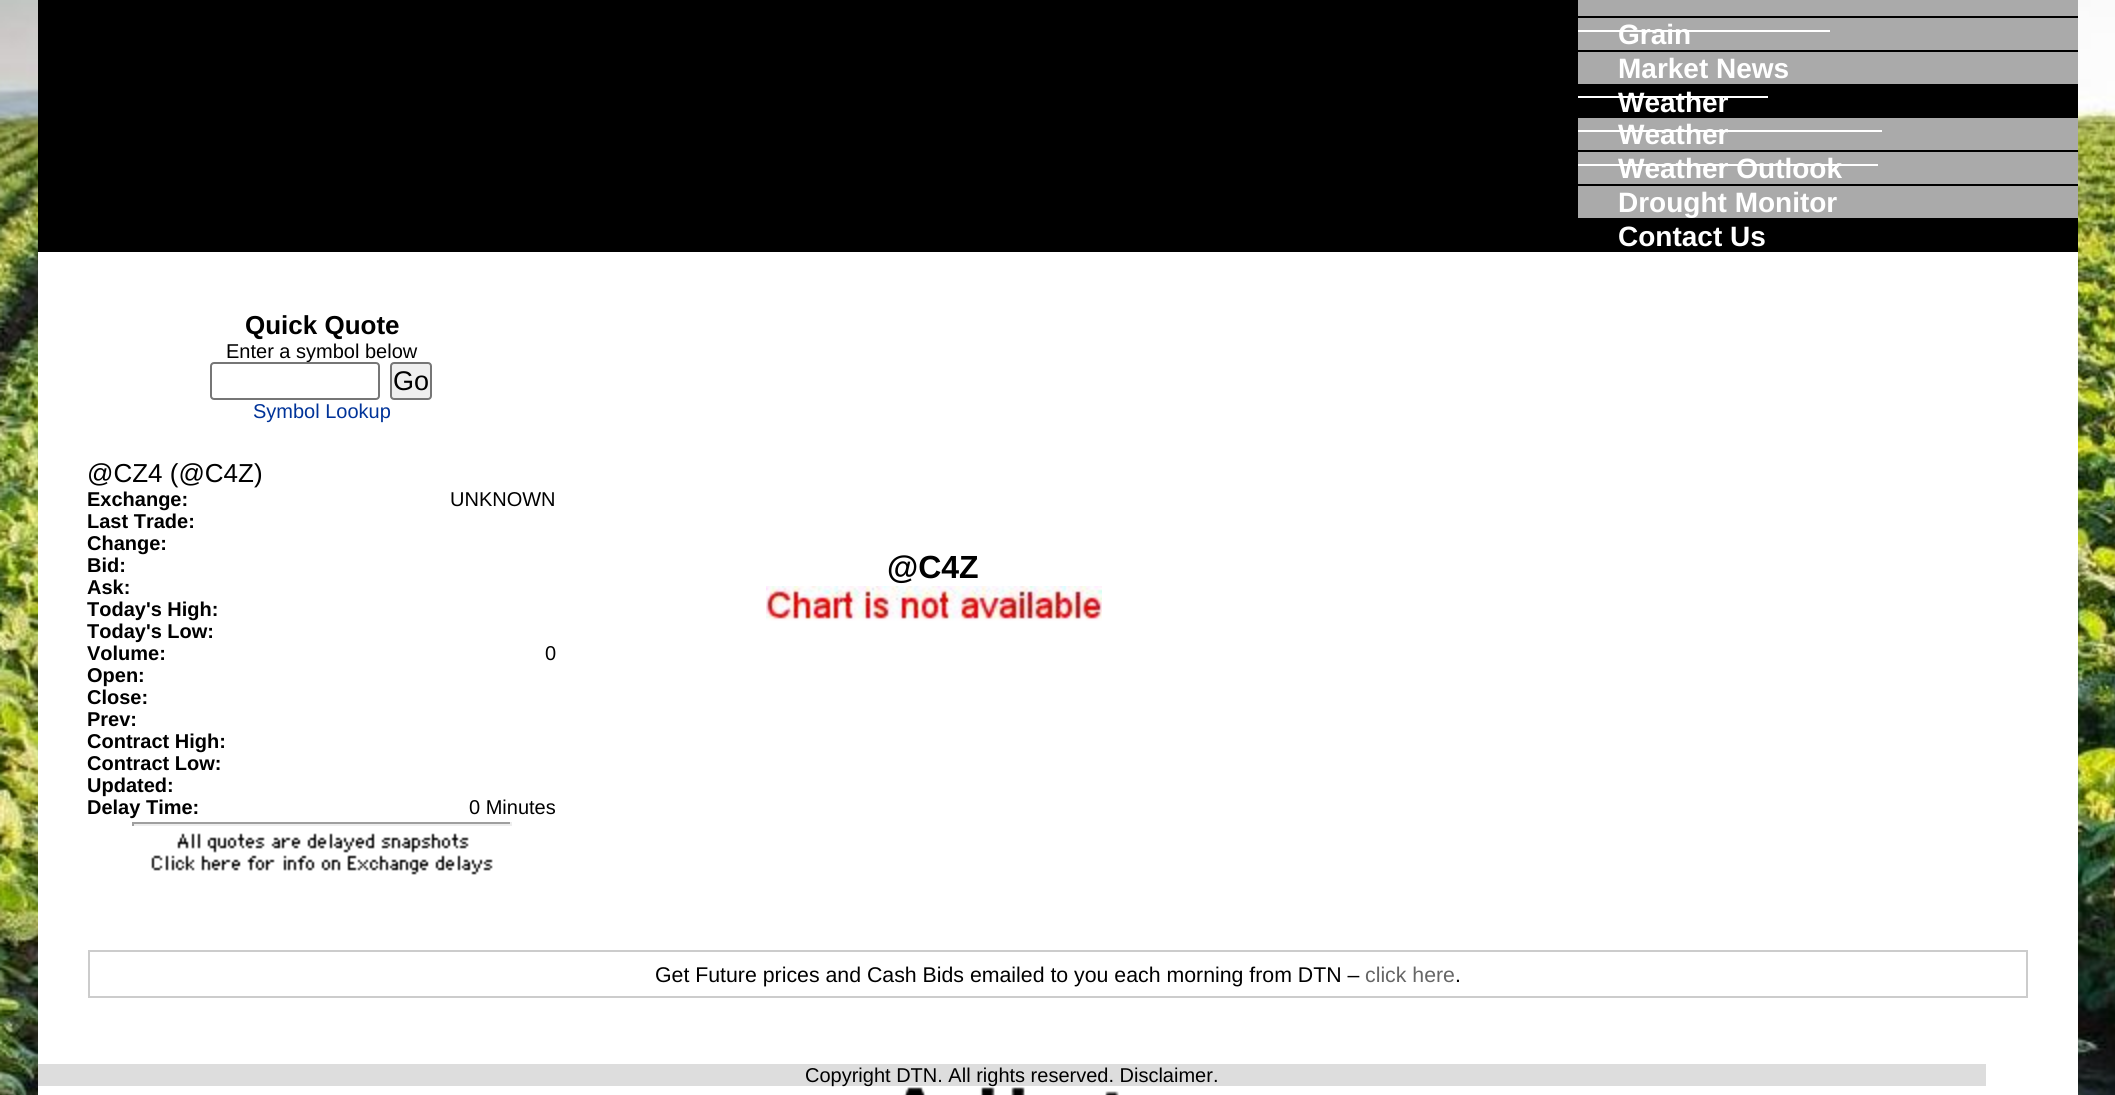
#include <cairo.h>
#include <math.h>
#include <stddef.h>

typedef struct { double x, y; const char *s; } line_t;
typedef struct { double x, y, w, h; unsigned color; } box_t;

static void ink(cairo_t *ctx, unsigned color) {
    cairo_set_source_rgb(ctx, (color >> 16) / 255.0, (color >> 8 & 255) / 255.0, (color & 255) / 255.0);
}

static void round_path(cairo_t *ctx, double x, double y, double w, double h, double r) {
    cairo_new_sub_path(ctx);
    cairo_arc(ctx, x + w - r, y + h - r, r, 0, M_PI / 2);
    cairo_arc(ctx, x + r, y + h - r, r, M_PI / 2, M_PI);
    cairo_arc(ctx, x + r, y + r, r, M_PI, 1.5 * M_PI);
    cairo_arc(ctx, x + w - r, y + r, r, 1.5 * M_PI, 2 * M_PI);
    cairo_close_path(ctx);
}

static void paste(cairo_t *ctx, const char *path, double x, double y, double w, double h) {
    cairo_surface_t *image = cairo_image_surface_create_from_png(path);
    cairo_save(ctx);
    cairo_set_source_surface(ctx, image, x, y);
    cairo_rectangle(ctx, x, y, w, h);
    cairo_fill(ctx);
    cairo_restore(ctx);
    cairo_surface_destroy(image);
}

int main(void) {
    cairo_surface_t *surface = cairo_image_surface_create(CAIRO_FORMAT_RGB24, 2115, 1095);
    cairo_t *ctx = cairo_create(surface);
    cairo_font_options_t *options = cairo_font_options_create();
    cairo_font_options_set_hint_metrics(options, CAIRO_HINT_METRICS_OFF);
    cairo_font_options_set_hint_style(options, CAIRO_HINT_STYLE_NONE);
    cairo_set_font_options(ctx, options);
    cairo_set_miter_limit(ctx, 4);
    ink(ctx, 0xFFFFFF);
    cairo_paint(ctx);
    paste(ctx, "media/1.png", 0, 0, 2115, 1095);
    {
        static const box_t items[] = {
            {38, 252, 2040, 843, 0xFFFFFF},
            {38, 0, 2040, 252, 0x000000},
            {1578, 0, 500, 16, 0xAAAAAA},
            {1578, 18, 500, 32, 0xAAAAAA},
        };
        for (size_t i = 0; i < sizeof items / sizeof *items; i++) {
            ink(ctx, items[i].color);
            cairo_rectangle(ctx, items[i].x, items[i].y, items[i].w, items[i].h);
            cairo_fill(ctx);
        }
    }
    cairo_select_font_face(ctx, "Liberation Sans", CAIRO_FONT_SLANT_NORMAL, CAIRO_FONT_WEIGHT_BOLD);
    cairo_set_font_size(ctx, 28);
    ink(ctx, 0xFFFFFF);
    cairo_move_to(ctx, 1618, 44);
    cairo_show_text(ctx, "Grain");
    ink(ctx, 0xAAAAAA);
    cairo_rectangle(ctx, 1578, 52, 500, 32);
    cairo_fill(ctx);
    ink(ctx, 0xFFFFFF);
    cairo_move_to(ctx, 1618, 78);
    cairo_show_text(ctx, "Market News");
    cairo_rectangle(ctx, 1578, 30, 252, 2);
    cairo_fill(ctx);
    cairo_move_to(ctx, 1618, 112);
    cairo_show_text(ctx, "Weather");
    ink(ctx, 0xAAAAAA);
    cairo_rectangle(ctx, 1578, 118, 500, 32);
    cairo_fill(ctx);
    ink(ctx, 0xFFFFFF);
    cairo_move_to(ctx, 1618, 144);
    cairo_show_text(ctx, "Weather");
    cairo_rectangle(ctx, 1578, 96, 190, 2);
    cairo_fill(ctx);
    ink(ctx, 0xAAAAAA);
    cairo_rectangle(ctx, 1578, 152, 500, 32);
    cairo_fill(ctx);
    ink(ctx, 0xFFFFFF);
    cairo_move_to(ctx, 1618, 178);
    cairo_show_text(ctx, "Weather Outlook");
    cairo_rectangle(ctx, 1578, 130, 304, 2);
    cairo_fill(ctx);
    ink(ctx, 0xAAAAAA);
    cairo_rectangle(ctx, 1578, 186, 500, 32);
    cairo_fill(ctx);
    ink(ctx, 0xFFFFFF);
    cairo_move_to(ctx, 1618, 212);
    cairo_show_text(ctx, "Drought Monitor");
    cairo_rectangle(ctx, 1578, 164, 300, 2);
    cairo_fill(ctx);
    cairo_move_to(ctx, 1618, 246);
    cairo_show_text(ctx, "Contact Us");
    cairo_set_font_size(ctx, 26);
    ink(ctx, 0x000000);
    cairo_move_to(ctx, 245, 334);
    cairo_show_text(ctx, "Quick Quote");
    cairo_select_font_face(ctx, "Liberation Sans", CAIRO_FONT_SLANT_NORMAL, CAIRO_FONT_WEIGHT_NORMAL);
    cairo_set_font_size(ctx, 20);
    cairo_move_to(ctx, 226, 358);
    cairo_show_text(ctx, "Enter a symbol below");
    ink(ctx, 0xFFFFFF);
    round_path(ctx, 211, 363, 168, 36, 3);
    cairo_fill_preserve(ctx);
    ink(ctx, 0x767676);
    cairo_stroke(ctx);
    ink(ctx, 0xEFEFEF);
    round_path(ctx, 391, 363, 40, 36, 3);
    cairo_fill_preserve(ctx);
    ink(ctx, 0x767676);
    cairo_stroke(ctx);
    cairo_set_font_size(ctx, 27);
    ink(ctx, 0x000000);
    cairo_move_to(ctx, 393, 390);
    cairo_show_text(ctx, "Go");
    cairo_set_font_size(ctx, 20);
    ink(ctx, 0x003399);
    cairo_move_to(ctx, 253, 418);
    cairo_show_text(ctx, "Symbol Lookup");
    cairo_set_font_size(ctx, 26);
    ink(ctx, 0x000000);
    cairo_move_to(ctx, 87, 482);
    cairo_show_text(ctx, "@CZ4 (@C4Z)");
    cairo_select_font_face(ctx, "Liberation Sans", CAIRO_FONT_SLANT_NORMAL, CAIRO_FONT_WEIGHT_BOLD);
    cairo_set_font_size(ctx, 20);
    cairo_move_to(ctx, 87, 506);
    cairo_show_text(ctx, "Exchange:");
    cairo_select_font_face(ctx, "Liberation Sans", CAIRO_FONT_SLANT_NORMAL, CAIRO_FONT_WEIGHT_NORMAL);
    cairo_move_to(ctx, 450, 506);
    cairo_show_text(ctx, "UNKNOWN");
    cairo_select_font_face(ctx, "Liberation Sans", CAIRO_FONT_SLANT_NORMAL, CAIRO_FONT_WEIGHT_BOLD);
    {
        static const line_t items[] = {
            {87, 528, "Last Trade:"},
            {87, 550, "Change:"},
            {87, 572, "Bid:"},
            {87, 594, "Ask:"},
            {87, 616, "Today's High:"},
            {87, 638, "Today's Low:"},
            {87, 660, "Volume:"},
        };
        for (size_t i = 0; i < sizeof items / sizeof *items; i++) {
            cairo_move_to(ctx, items[i].x, items[i].y);
            cairo_show_text(ctx, items[i].s);
        }
    }
    cairo_select_font_face(ctx, "Liberation Sans", CAIRO_FONT_SLANT_NORMAL, CAIRO_FONT_WEIGHT_NORMAL);
    cairo_move_to(ctx, 545, 660);
    cairo_show_text(ctx, "0");
    cairo_select_font_face(ctx, "Liberation Sans", CAIRO_FONT_SLANT_NORMAL, CAIRO_FONT_WEIGHT_BOLD);
    {
        static const line_t items[] = {
            {87, 682, "Open:"},
            {87, 704, "Close:"},
            {87, 726, "Prev:"},
            {87, 748, "Contract High:"},
            {87, 770, "Contract Low:"},
            {87, 792, "Updated:"},
            {87, 814, "Delay Time:"},
        };
        for (size_t i = 0; i < sizeof items / sizeof *items; i++) {
            cairo_move_to(ctx, items[i].x, items[i].y);
            cairo_show_text(ctx, items[i].s);
        }
    }
    cairo_select_font_face(ctx, "Liberation Sans", CAIRO_FONT_SLANT_NORMAL, CAIRO_FONT_WEIGHT_NORMAL);
    cairo_move_to(ctx, 469, 814);
    cairo_show_text(ctx, "0 Minutes");
    {
        static const box_t items[] = {
            {132, 822, 380, 2, 0x9F9F9F},
            {510, 822, 2, 4, 0xEEEEEE},
            {132, 824, 380, 2, 0xEEEEEE},
            {132, 822, 2, 4, 0x9F9F9F},
        };
        for (size_t i = 0; i < sizeof items / sizeof *items; i++) {
            ink(ctx, items[i].color);
            cairo_rectangle(ctx, items[i].x, items[i].y, items[i].w, items[i].h);
            cairo_fill(ctx);
        }
    }
    paste(ctx, "media/2.png", 151, 833, 342, 42);
    cairo_select_font_face(ctx, "Liberation Sans", CAIRO_FONT_SLANT_NORMAL, CAIRO_FONT_WEIGHT_BOLD);
    cairo_set_font_size(ctx, 32);
    ink(ctx, 0x000000);
    cairo_move_to(ctx, 887, 578);
    cairo_show_text(ctx, "@C4Z");
    paste(ctx, "media/3.png", 766, 586, 336, 35);
    cairo_rectangle(ctx, 89, 951, 1938, 46);
    ink(ctx, 0xCCCCCC);
    cairo_stroke(ctx);
    cairo_select_font_face(ctx, "Liberation Sans", CAIRO_FONT_SLANT_NORMAL, CAIRO_FONT_WEIGHT_NORMAL);
    cairo_set_font_size(ctx, 21.3);
    ink(ctx, 0x000000);
    cairo_move_to(ctx, 655, 982);
    cairo_show_text(ctx, "Get Future prices and Cash Bids emailed to you each morning from DTN –");
    ink(ctx, 0x666666);
    cairo_move_to(ctx, 1365, 982);
    cairo_show_text(ctx, "click here");
    ink(ctx, 0x000000);
    cairo_move_to(ctx, 1455, 982);
    cairo_show_text(ctx, ".");
    ink(ctx, 0xDDDDDD);
    cairo_rectangle(ctx, 38, 1064, 1948, 22);
    cairo_fill(ctx);
    cairo_set_font_size(ctx, 20);
    ink(ctx, 0x000000);
    cairo_move_to(ctx, 805, 1082);
    cairo_show_text(ctx, "Copyright DTN. All rights reserved. Disclaimer.");
    paste(ctx, "media/4.png", 903, 1087, 216, 8);
    cairo_surface_write_to_png(surface, "image.png");
    cairo_font_options_destroy(options);
    cairo_destroy(ctx);
    cairo_surface_destroy(surface);
    return 0;
}
